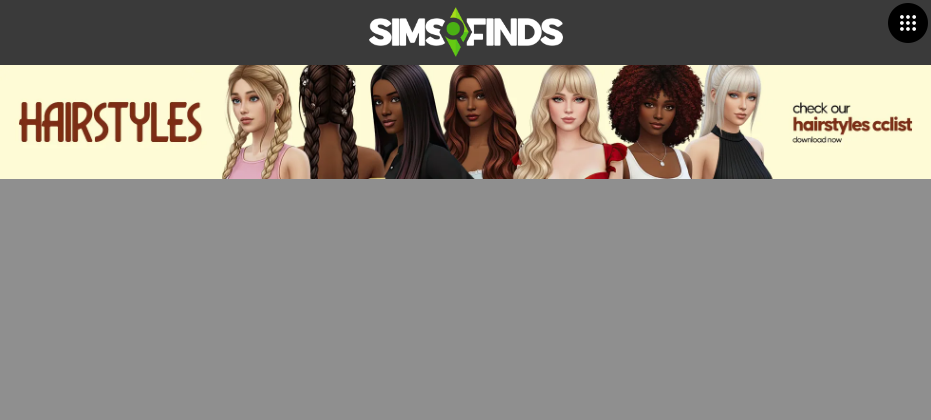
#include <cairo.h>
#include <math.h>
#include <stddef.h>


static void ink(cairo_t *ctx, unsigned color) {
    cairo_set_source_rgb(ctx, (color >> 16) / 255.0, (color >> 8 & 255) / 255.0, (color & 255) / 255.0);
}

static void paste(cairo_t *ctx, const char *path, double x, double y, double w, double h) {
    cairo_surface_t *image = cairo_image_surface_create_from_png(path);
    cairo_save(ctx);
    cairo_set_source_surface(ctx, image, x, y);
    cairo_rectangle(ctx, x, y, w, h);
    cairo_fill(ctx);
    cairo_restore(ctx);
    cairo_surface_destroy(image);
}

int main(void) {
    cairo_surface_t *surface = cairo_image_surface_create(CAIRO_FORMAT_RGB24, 931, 420);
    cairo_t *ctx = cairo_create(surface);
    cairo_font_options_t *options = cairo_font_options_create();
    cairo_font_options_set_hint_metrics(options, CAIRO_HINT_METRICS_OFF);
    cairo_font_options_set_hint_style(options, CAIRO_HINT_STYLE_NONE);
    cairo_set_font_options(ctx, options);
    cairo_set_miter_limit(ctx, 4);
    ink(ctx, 0x3A3A3A);
    cairo_paint(ctx);
    paste(ctx, "media/1.png", 369, 7, 194, 50);
    ink(ctx, 0x000000);
    cairo_arc(ctx, 908, 23, 20, 0, 2 * M_PI);
    cairo_fill(ctx);
    paste(ctx, "media/2.png", 900, 15, 16, 16);
    paste(ctx, "media/3.png", 0, 65, 186, 114);
    paste(ctx, "media/4.png", 186, 65, 186, 114);
    paste(ctx, "media/5.png", 372, 65, 187, 114);
    paste(ctx, "media/6.png", 559, 65, 186, 114);
    paste(ctx, "media/7.png", 745, 65, 186, 114);
    ink(ctx, 0x8F8F8F);
    cairo_rectangle(ctx, 0, 179, 931, 241);
    cairo_fill(ctx);
    cairo_surface_write_to_png(surface, "image.png");
    cairo_font_options_destroy(options);
    cairo_destroy(ctx);
    cairo_surface_destroy(surface);
    return 0;
}
